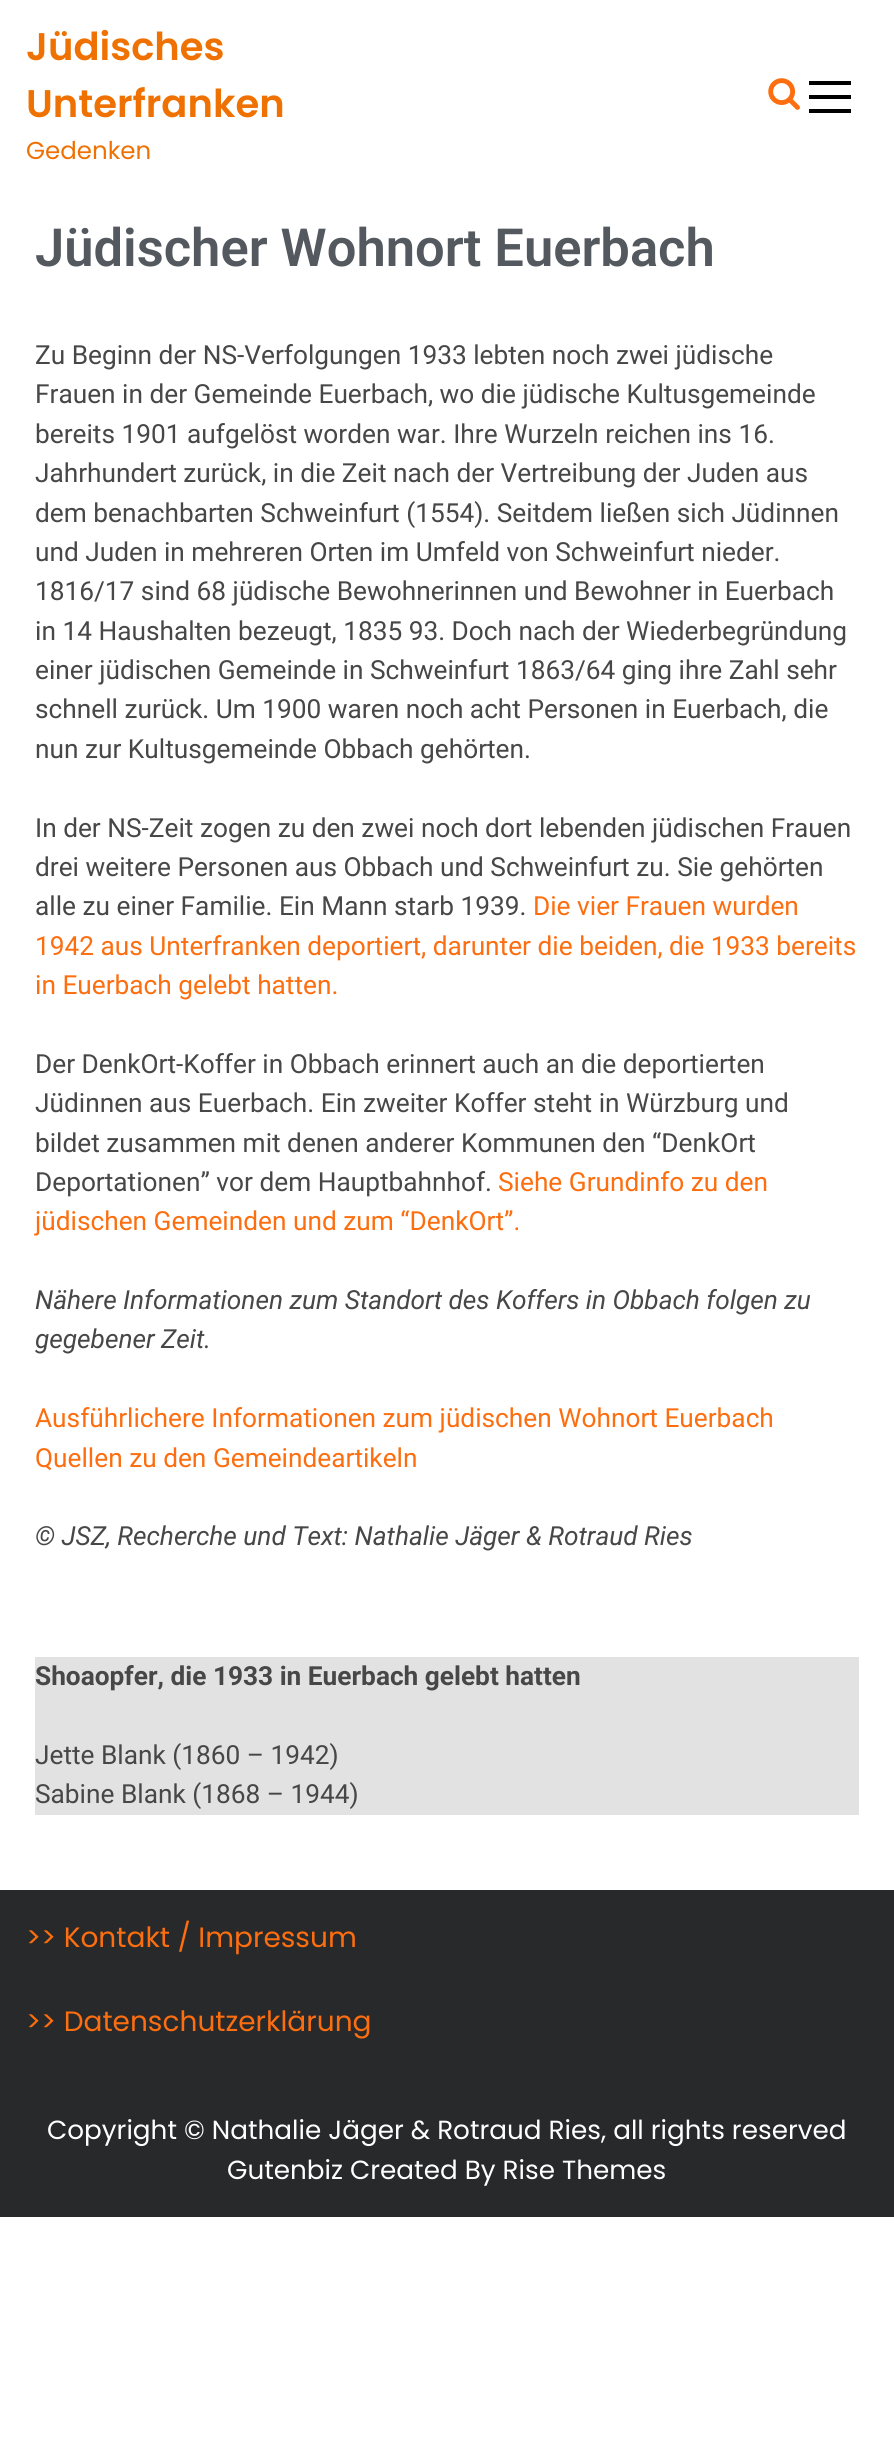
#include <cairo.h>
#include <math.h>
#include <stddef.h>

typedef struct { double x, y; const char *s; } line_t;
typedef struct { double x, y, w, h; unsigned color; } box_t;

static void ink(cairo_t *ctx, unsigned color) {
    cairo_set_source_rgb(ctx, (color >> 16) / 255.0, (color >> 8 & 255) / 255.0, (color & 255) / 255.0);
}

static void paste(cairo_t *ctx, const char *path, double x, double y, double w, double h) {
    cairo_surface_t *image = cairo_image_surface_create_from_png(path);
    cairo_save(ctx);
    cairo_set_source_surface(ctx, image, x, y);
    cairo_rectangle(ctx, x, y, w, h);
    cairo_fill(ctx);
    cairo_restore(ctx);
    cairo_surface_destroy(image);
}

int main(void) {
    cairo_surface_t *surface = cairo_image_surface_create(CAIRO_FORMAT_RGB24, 894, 2463);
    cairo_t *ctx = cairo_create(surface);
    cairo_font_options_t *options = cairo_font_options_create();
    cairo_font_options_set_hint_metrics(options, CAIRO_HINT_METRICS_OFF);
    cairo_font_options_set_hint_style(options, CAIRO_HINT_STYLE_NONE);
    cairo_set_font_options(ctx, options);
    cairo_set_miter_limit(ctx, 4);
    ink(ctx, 0xFFFFFF);
    cairo_paint(ctx);
    cairo_select_font_face(ctx, "Poppins SemiBold", CAIRO_FONT_SLANT_NORMAL, CAIRO_FONT_WEIGHT_NORMAL);
    cairo_set_font_size(ctx, 38.5);
    ink(ctx, 0xEF7102);
    cairo_move_to(ctx, 26, 60);
    cairo_show_text(ctx, "Jüdisches");
    cairo_move_to(ctx, 26, 117);
    cairo_show_text(ctx, "Unterfranken");
    cairo_select_font_face(ctx, "Poppins", CAIRO_FONT_SLANT_NORMAL, CAIRO_FONT_WEIGHT_NORMAL);
    cairo_set_font_size(ctx, 24.5);
    cairo_move_to(ctx, 26, 159);
    cairo_show_text(ctx, "Gedenken");
    paste(ctx, "media/1.png", 768, 78, 32, 32);
    {
        static const box_t items[] = {
            {809, 81, 42, 4, 0x000000},
            {809, 95, 42, 4, 0x000000},
            {809, 109, 42, 4, 0x000000},
        };
        for (size_t i = 0; i < sizeof items / sizeof *items; i++) {
            ink(ctx, items[i].color);
            cairo_rectangle(ctx, items[i].x, items[i].y, items[i].w, items[i].h);
            cairo_fill(ctx);
        }
    }
    cairo_select_font_face(ctx, "Roboto SemiBold", CAIRO_FONT_SLANT_NORMAL, CAIRO_FONT_WEIGHT_NORMAL);
    cairo_set_font_size(ctx, 52.5);
    ink(ctx, 0x54595F);
    cairo_move_to(ctx, 35, 266);
    cairo_show_text(ctx, "Jüdischer Wohnort Euerbach");
    cairo_select_font_face(ctx, "Roboto", CAIRO_FONT_SLANT_NORMAL, CAIRO_FONT_WEIGHT_NORMAL);
    cairo_set_font_size(ctx, 26.25);
    ink(ctx, 0x474747);
    {
        static const line_t items[] = {
            {35, 364, "Zu Beginn der NS-Verfolgungen 1933 lebten noch zwei jüdische"},
            {35, 403, "Frauen in der Gemeinde Euerbach, wo die jüdische Kultusgemeinde"},
            {35, 443, "bereits 1901 aufgelöst worden war. Ihre Wurzeln reichen ins 16."},
            {35, 482, "Jahrhundert zurück, in die Zeit nach der Vertreibung der Juden aus"},
            {35, 522, "dem benachbarten Schweinfurt (1554). Seitdem ließen sich Jüdinnen"},
            {35, 561, "und Juden in mehreren Orten im Umfeld von Schweinfurt nieder."},
            {35, 600, "1816/17 sind 68 jüdische Bewohnerinnen und Bewohner in Euerbach"},
            {35, 640, "in 14 Haushalten bezeugt, 1835 93. Doch nach der Wiederbegründung"},
            {35, 679, "einer jüdischen Gemeinde in Schweinfurt 1863/64 ging ihre Zahl sehr"},
            {35, 718, "schnell zurück. Um 1900 waren noch acht Personen in Euerbach, die"},
            {35, 758, "nun zur Kultusgemeinde Obbach gehörten."},
            {35, 837, "In der NS-Zeit zogen zu den zwei noch dort lebenden jüdischen Frauen"},
            {35, 876, "drei weitere Personen aus Obbach und Schweinfurt zu. Sie gehörten"},
            {35, 915, "alle zu einer Familie. Ein Mann starb 1939."},
        };
        for (size_t i = 0; i < sizeof items / sizeof *items; i++) {
            cairo_move_to(ctx, items[i].x, items[i].y);
            cairo_show_text(ctx, items[i].s);
        }
    }
    ink(ctx, 0xFC6E0F);
    {
        static const line_t items[] = {
            {533, 915, "Die vier Frauen wurden"},
            {35, 955, "1942 aus Unterfranken deportiert, darunter die beiden, die 1933 bereits"},
            {35, 994, "in Euerbach gelebt hatten."},
        };
        for (size_t i = 0; i < sizeof items / sizeof *items; i++) {
            cairo_move_to(ctx, items[i].x, items[i].y);
            cairo_show_text(ctx, items[i].s);
        }
    }
    ink(ctx, 0x474747);
    {
        static const line_t items[] = {
            {35, 1073, "Der DenkOrt-Koffer in Obbach erinnert auch an die deportierten"},
            {35, 1112, "Jüdinnen aus Euerbach. Ein zweiter Koffer steht in Würzburg und"},
            {35, 1152, "bildet zusammen mit denen anderer Kommunen den “DenkOrt"},
            {35, 1191, "Deportationen” vor dem Hauptbahnhof."},
        };
        for (size_t i = 0; i < sizeof items / sizeof *items; i++) {
            cairo_move_to(ctx, items[i].x, items[i].y);
            cairo_show_text(ctx, items[i].s);
        }
    }
    ink(ctx, 0xFC6E0F);
    cairo_move_to(ctx, 498, 1191);
    cairo_show_text(ctx, "Siehe Grundinfo zu den");
    cairo_move_to(ctx, 35, 1230);
    cairo_show_text(ctx, "jüdischen Gemeinden und zum “DenkOrt”.");
    cairo_select_font_face(ctx, "Roboto", CAIRO_FONT_SLANT_ITALIC, CAIRO_FONT_WEIGHT_NORMAL);
    ink(ctx, 0x474747);
    cairo_move_to(ctx, 35, 1309);
    cairo_show_text(ctx, "Nähere Informationen zum Standort des Koffers in Obbach folgen zu");
    cairo_move_to(ctx, 35, 1348);
    cairo_show_text(ctx, "gegebener Zeit.");
    cairo_select_font_face(ctx, "Roboto", CAIRO_FONT_SLANT_NORMAL, CAIRO_FONT_WEIGHT_NORMAL);
    ink(ctx, 0xFC6E0F);
    cairo_move_to(ctx, 35, 1427);
    cairo_show_text(ctx, "Ausführlichere Informationen zum jüdischen Wohnort Euerbach");
    cairo_move_to(ctx, 35, 1467);
    cairo_show_text(ctx, "Quellen zu den Gemeindeartikeln");
    cairo_select_font_face(ctx, "Roboto", CAIRO_FONT_SLANT_ITALIC, CAIRO_FONT_WEIGHT_NORMAL);
    ink(ctx, 0x474747);
    cairo_move_to(ctx, 35, 1545);
    cairo_show_text(ctx, "© JSZ, Recherche und Text: Nathalie Jäger & Rotraud Ries");
    ink(ctx, 0xE2E2E2);
    cairo_rectangle(ctx, 35, 1657, 824, 158);
    cairo_fill(ctx);
    cairo_select_font_face(ctx, "Roboto", CAIRO_FONT_SLANT_NORMAL, CAIRO_FONT_WEIGHT_BOLD);
    ink(ctx, 0x474747);
    cairo_move_to(ctx, 35, 1685);
    cairo_show_text(ctx, "Shoaopfer, die 1933 in Euerbach gelebt hatten");
    cairo_select_font_face(ctx, "Roboto", CAIRO_FONT_SLANT_NORMAL, CAIRO_FONT_WEIGHT_NORMAL);
    cairo_move_to(ctx, 35, 1764);
    cairo_show_text(ctx, "Jette Blank (1860 – 1942)");
    cairo_move_to(ctx, 35, 1803);
    cairo_show_text(ctx, "Sabine Blank (1868 – 1944)");
    ink(ctx, 0x28292A);
    cairo_rectangle(ctx, 0, 1890, 894, 327);
    cairo_fill(ctx);
    cairo_select_font_face(ctx, "Poppins", CAIRO_FONT_SLANT_NORMAL, CAIRO_FONT_WEIGHT_NORMAL);
    cairo_set_font_size(ctx, 28);
    ink(ctx, 0xFC6E0F);
    cairo_move_to(ctx, 26, 1947);
    cairo_show_text(ctx, ">> Kontakt / Impressum");
    cairo_move_to(ctx, 26, 2031);
    cairo_show_text(ctx, ">> Datenschutzerklärung");
    cairo_set_font_size(ctx, 26.25);
    ink(ctx, 0xFFFFFF);
    cairo_move_to(ctx, 47, 2139);
    cairo_show_text(ctx, "Copyright © Nathalie Jäger & Rotraud Ries, all rights reserved");
    cairo_move_to(ctx, 227, 2179);
    cairo_show_text(ctx, "Gutenbiz Created By Rise Themes");
    cairo_surface_write_to_png(surface, "image.png");
    cairo_font_options_destroy(options);
    cairo_destroy(ctx);
    cairo_surface_destroy(surface);
    return 0;
}
